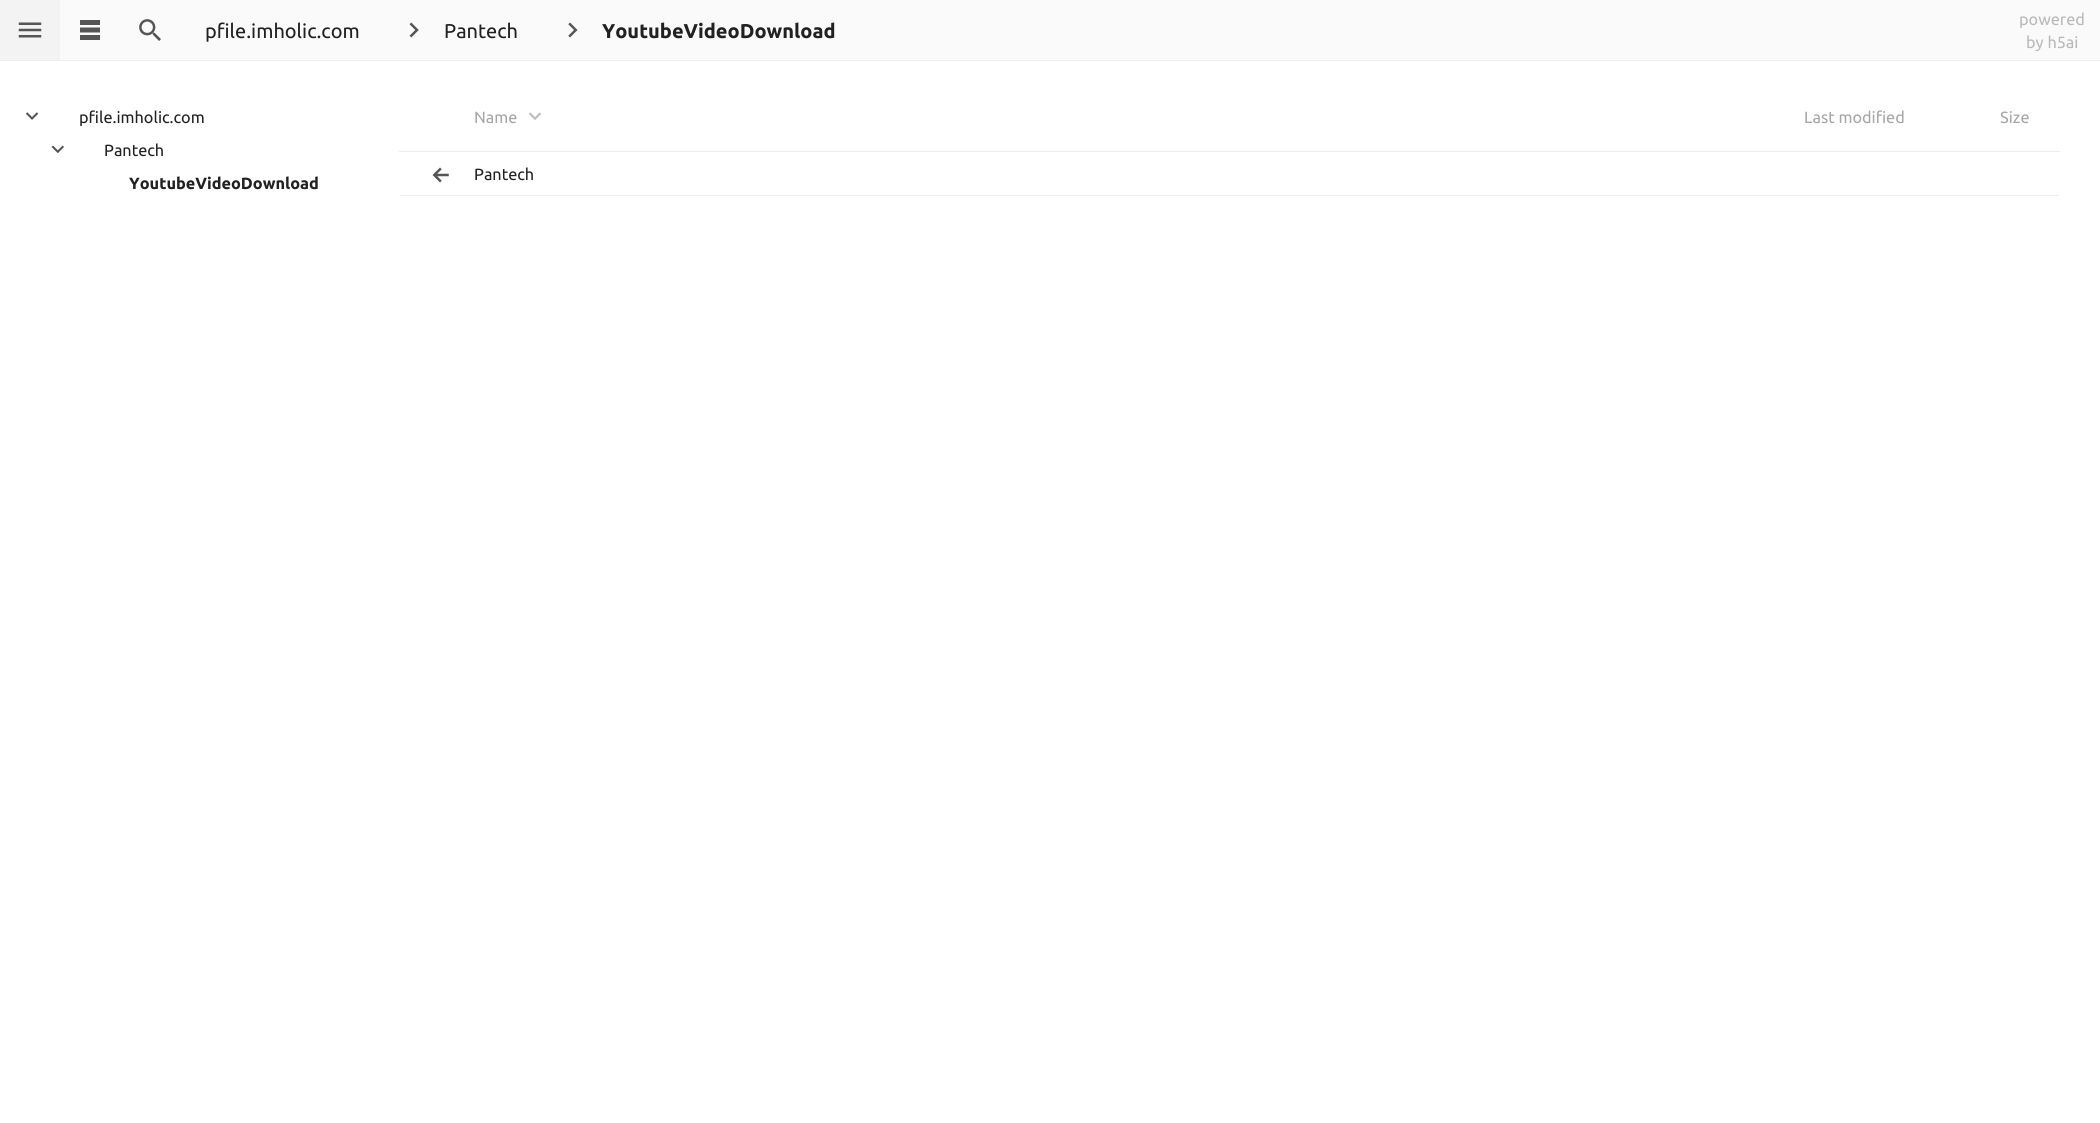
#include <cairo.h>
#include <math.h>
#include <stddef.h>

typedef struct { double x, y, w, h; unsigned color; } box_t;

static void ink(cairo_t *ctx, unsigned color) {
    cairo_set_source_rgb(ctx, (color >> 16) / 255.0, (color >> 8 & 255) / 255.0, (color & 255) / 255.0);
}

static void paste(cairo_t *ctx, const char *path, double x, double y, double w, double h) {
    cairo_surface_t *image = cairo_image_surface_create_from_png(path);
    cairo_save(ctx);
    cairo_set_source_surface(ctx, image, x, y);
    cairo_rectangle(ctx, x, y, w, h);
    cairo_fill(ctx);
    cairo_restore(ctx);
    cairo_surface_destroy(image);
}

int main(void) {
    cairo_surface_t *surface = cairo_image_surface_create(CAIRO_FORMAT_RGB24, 2100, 1123);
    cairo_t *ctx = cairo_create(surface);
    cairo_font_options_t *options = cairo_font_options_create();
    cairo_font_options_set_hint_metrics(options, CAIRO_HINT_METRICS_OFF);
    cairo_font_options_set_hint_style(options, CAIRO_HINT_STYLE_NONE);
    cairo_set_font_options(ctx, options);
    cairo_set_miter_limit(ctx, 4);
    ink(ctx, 0xFFFFFF);
    cairo_paint(ctx);
    {
        static const box_t items[] = {
            {60, 0, 2040, 60, 0xFAFAFA},
            {0, 60, 2100, 1, 0xEEEEEE},
            {0, 0, 60, 60, 0xF3F3F3},
        };
        for (size_t i = 0; i < sizeof items / sizeof *items; i++) {
            ink(ctx, items[i].color);
            cairo_rectangle(ctx, items[i].x, items[i].y, items[i].w, items[i].h);
            cairo_fill(ctx);
        }
    }
    paste(ctx, "media/1.png", 18, 22, 24, 16);
    paste(ctx, "media/2.png", 80, 20, 20, 20);
    paste(ctx, "media/3.png", 139, 19, 22, 22);
    cairo_select_font_face(ctx, "Ubuntu", CAIRO_FONT_SLANT_NORMAL, CAIRO_FONT_WEIGHT_NORMAL);
    cairo_set_font_size(ctx, 20);
    ink(ctx, 0x212121);
    cairo_move_to(ctx, 205, 38);
    cairo_show_text(ctx, "pfile.imholic.com");
    paste(ctx, "media/4.png", 409, 22, 10, 16);
    cairo_move_to(ctx, 444, 38);
    cairo_show_text(ctx, "Pantech");
    paste(ctx, "media/5.png", 568, 22, 10, 16);
    cairo_select_font_face(ctx, "Ubuntu", CAIRO_FONT_SLANT_NORMAL, CAIRO_FONT_WEIGHT_BOLD);
    cairo_move_to(ctx, 602, 38);
    cairo_show_text(ctx, "YoutubeVideoDownload");
    cairo_select_font_face(ctx, "Ubuntu", CAIRO_FONT_SLANT_NORMAL, CAIRO_FONT_WEIGHT_NORMAL);
    cairo_set_font_size(ctx, 16.25);
    ink(ctx, 0xB9B9B9);
    cairo_move_to(ctx, 2019, 25);
    cairo_show_text(ctx, "powered");
    cairo_move_to(ctx, 2026, 48);
    cairo_show_text(ctx, "by h5ai");
    paste(ctx, "media/6.png", 25, 112, 14, 8);
    ink(ctx, 0x212121);
    cairo_move_to(ctx, 79, 123);
    cairo_show_text(ctx, "pfile.imholic.com");
    paste(ctx, "media/7.png", 51, 145, 13, 9);
    cairo_move_to(ctx, 104, 156);
    cairo_show_text(ctx, "Pantech");
    cairo_select_font_face(ctx, "Ubuntu", CAIRO_FONT_SLANT_NORMAL, CAIRO_FONT_WEIGHT_BOLD);
    cairo_move_to(ctx, 129, 189);
    cairo_show_text(ctx, "YoutubeVideoDownload");
    ink(ctx, 0xEDEDED);
    cairo_rectangle(ctx, 399, 151, 1661, 1);
    cairo_fill(ctx);
    cairo_select_font_face(ctx, "Ubuntu", CAIRO_FONT_SLANT_NORMAL, CAIRO_FONT_WEIGHT_NORMAL);
    ink(ctx, 0xA6A6A6);
    cairo_move_to(ctx, 474, 123);
    cairo_show_text(ctx, "Name");
    paste(ctx, "media/8.png", 529, 112, 12, 8);
    cairo_move_to(ctx, 1804, 123);
    cairo_show_text(ctx, "Last modified");
    cairo_move_to(ctx, 2000, 123);
    cairo_show_text(ctx, "Size");
    ink(ctx, 0xEDEDED);
    cairo_rectangle(ctx, 400, 195, 1659, 1);
    cairo_fill(ctx);
    paste(ctx, "media/9.png", 432, 167, 17, 16);
    ink(ctx, 0x212121);
    cairo_move_to(ctx, 474, 180);
    cairo_show_text(ctx, "Pantech");
    cairo_surface_write_to_png(surface, "image.png");
    cairo_font_options_destroy(options);
    cairo_destroy(ctx);
    cairo_surface_destroy(surface);
    return 0;
}
